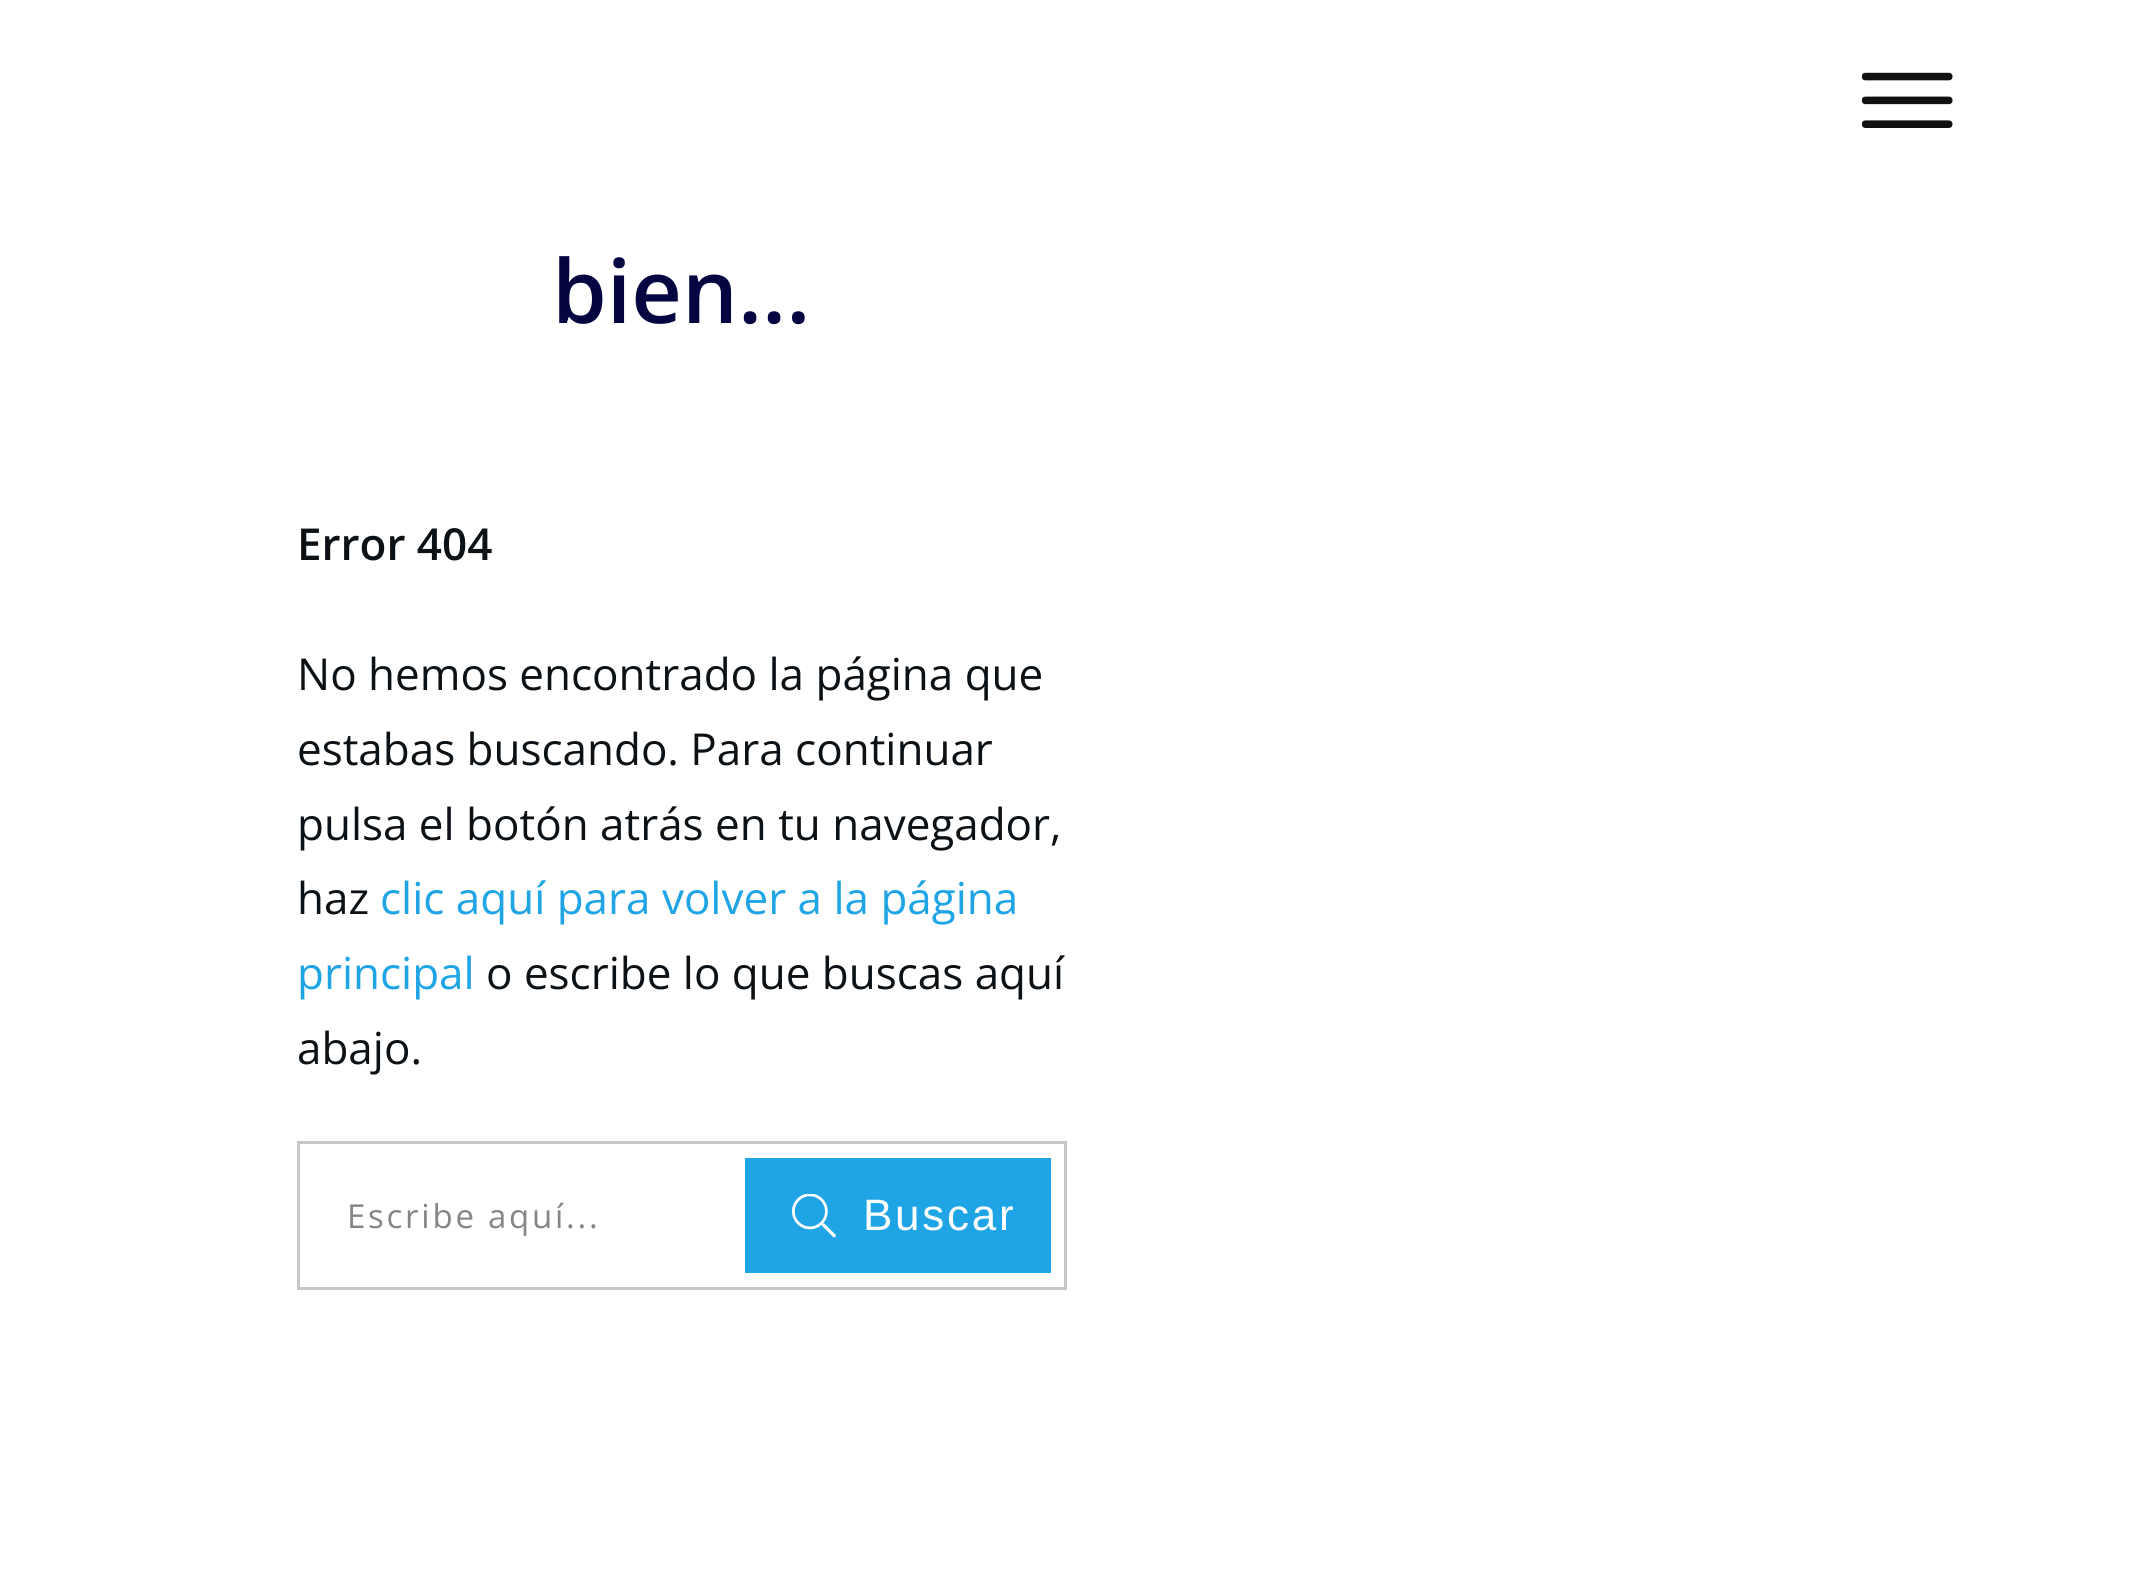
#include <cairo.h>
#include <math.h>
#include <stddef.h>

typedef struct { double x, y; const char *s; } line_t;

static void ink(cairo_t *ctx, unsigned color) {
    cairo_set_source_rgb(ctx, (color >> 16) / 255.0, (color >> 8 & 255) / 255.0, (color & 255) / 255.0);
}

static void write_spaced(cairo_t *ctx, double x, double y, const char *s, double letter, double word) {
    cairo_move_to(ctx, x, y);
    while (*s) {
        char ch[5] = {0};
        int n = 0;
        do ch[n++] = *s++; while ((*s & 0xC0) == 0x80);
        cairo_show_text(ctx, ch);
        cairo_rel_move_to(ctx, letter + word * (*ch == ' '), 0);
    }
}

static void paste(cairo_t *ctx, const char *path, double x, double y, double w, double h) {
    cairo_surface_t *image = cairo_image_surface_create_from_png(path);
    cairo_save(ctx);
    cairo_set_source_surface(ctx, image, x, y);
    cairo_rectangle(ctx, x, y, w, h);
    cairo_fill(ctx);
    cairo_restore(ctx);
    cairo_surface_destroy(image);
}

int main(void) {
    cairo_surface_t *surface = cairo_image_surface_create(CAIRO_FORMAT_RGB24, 2151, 1596);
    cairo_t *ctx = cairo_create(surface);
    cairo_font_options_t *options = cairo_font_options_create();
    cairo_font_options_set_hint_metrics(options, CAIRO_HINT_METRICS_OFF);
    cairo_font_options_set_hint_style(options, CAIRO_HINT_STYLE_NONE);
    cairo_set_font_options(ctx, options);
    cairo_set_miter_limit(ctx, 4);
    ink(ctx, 0xFFFFFF);
    cairo_paint(ctx);
    paste(ctx, "media/1.png", 1862, 72, 91, 56);
    cairo_select_font_face(ctx, "Open Sans SemiBold", CAIRO_FONT_SLANT_NORMAL, CAIRO_FONT_WEIGHT_NORMAL);
    cairo_set_font_size(ctx, 88);
    ink(ctx, 0x050541);
    cairo_move_to(ctx, 552, 323);
    cairo_show_text(ctx, "bien...");
    cairo_set_font_size(ctx, 44);
    ink(ctx, 0x0C1115);
    cairo_move_to(ctx, 297, 560);
    cairo_show_text(ctx, "Error 404");
    cairo_select_font_face(ctx, "Open Sans", CAIRO_FONT_SLANT_NORMAL, CAIRO_FONT_WEIGHT_NORMAL);
    {
        static const line_t items[] = {
            {297, 690, "No hemos encontrado la página que"},
            {297, 765, "estabas buscando. Para continuar"},
            {297, 840, "pulsa el botón atrás en tu navegador,"},
            {297, 914, "haz"},
        };
        for (size_t i = 0; i < sizeof items / sizeof *items; i++) {
            cairo_move_to(ctx, items[i].x, items[i].y);
            cairo_show_text(ctx, items[i].s);
        }
    }
    ink(ctx, 0x1FA5E6);
    cairo_move_to(ctx, 380, 914);
    cairo_show_text(ctx, "clic aquí para volver a la página");
    cairo_move_to(ctx, 297, 989);
    cairo_show_text(ctx, "principal");
    ink(ctx, 0x0C1115);
    cairo_move_to(ctx, 486, 989);
    cairo_show_text(ctx, "o escribe lo que buscas aquí");
    cairo_move_to(ctx, 297, 1064);
    cairo_show_text(ctx, "abajo.");
    cairo_rectangle(ctx, 298.5, 1142.5, 767, 146);
    ink(ctx, 0xC7C7C7);
    cairo_set_line_width(ctx, 3);
    cairo_stroke(ctx);
    cairo_set_font_size(ctx, 33);
    ink(ctx, 0x858585);
    write_spaced(ctx, 347, 1228, "Escribe aquí...", 2.75, 0);
    ink(ctx, 0x1FA5E6);
    cairo_rectangle(ctx, 745, 1158, 306, 115);
    cairo_fill(ctx);
    paste(ctx, "media/2.png", 792, 1194, 44, 44);
    cairo_select_font_face(ctx, "Liberation Sans", CAIRO_FONT_SLANT_NORMAL, CAIRO_FONT_WEIGHT_NORMAL);
    cairo_set_font_size(ctx, 44);
    ink(ctx, 0xFFFFFF);
    write_spaced(ctx, 863, 1230, "Buscar", 2.75, 0);
    cairo_surface_write_to_png(surface, "image.png");
    cairo_font_options_destroy(options);
    cairo_destroy(ctx);
    cairo_surface_destroy(surface);
    return 0;
}
